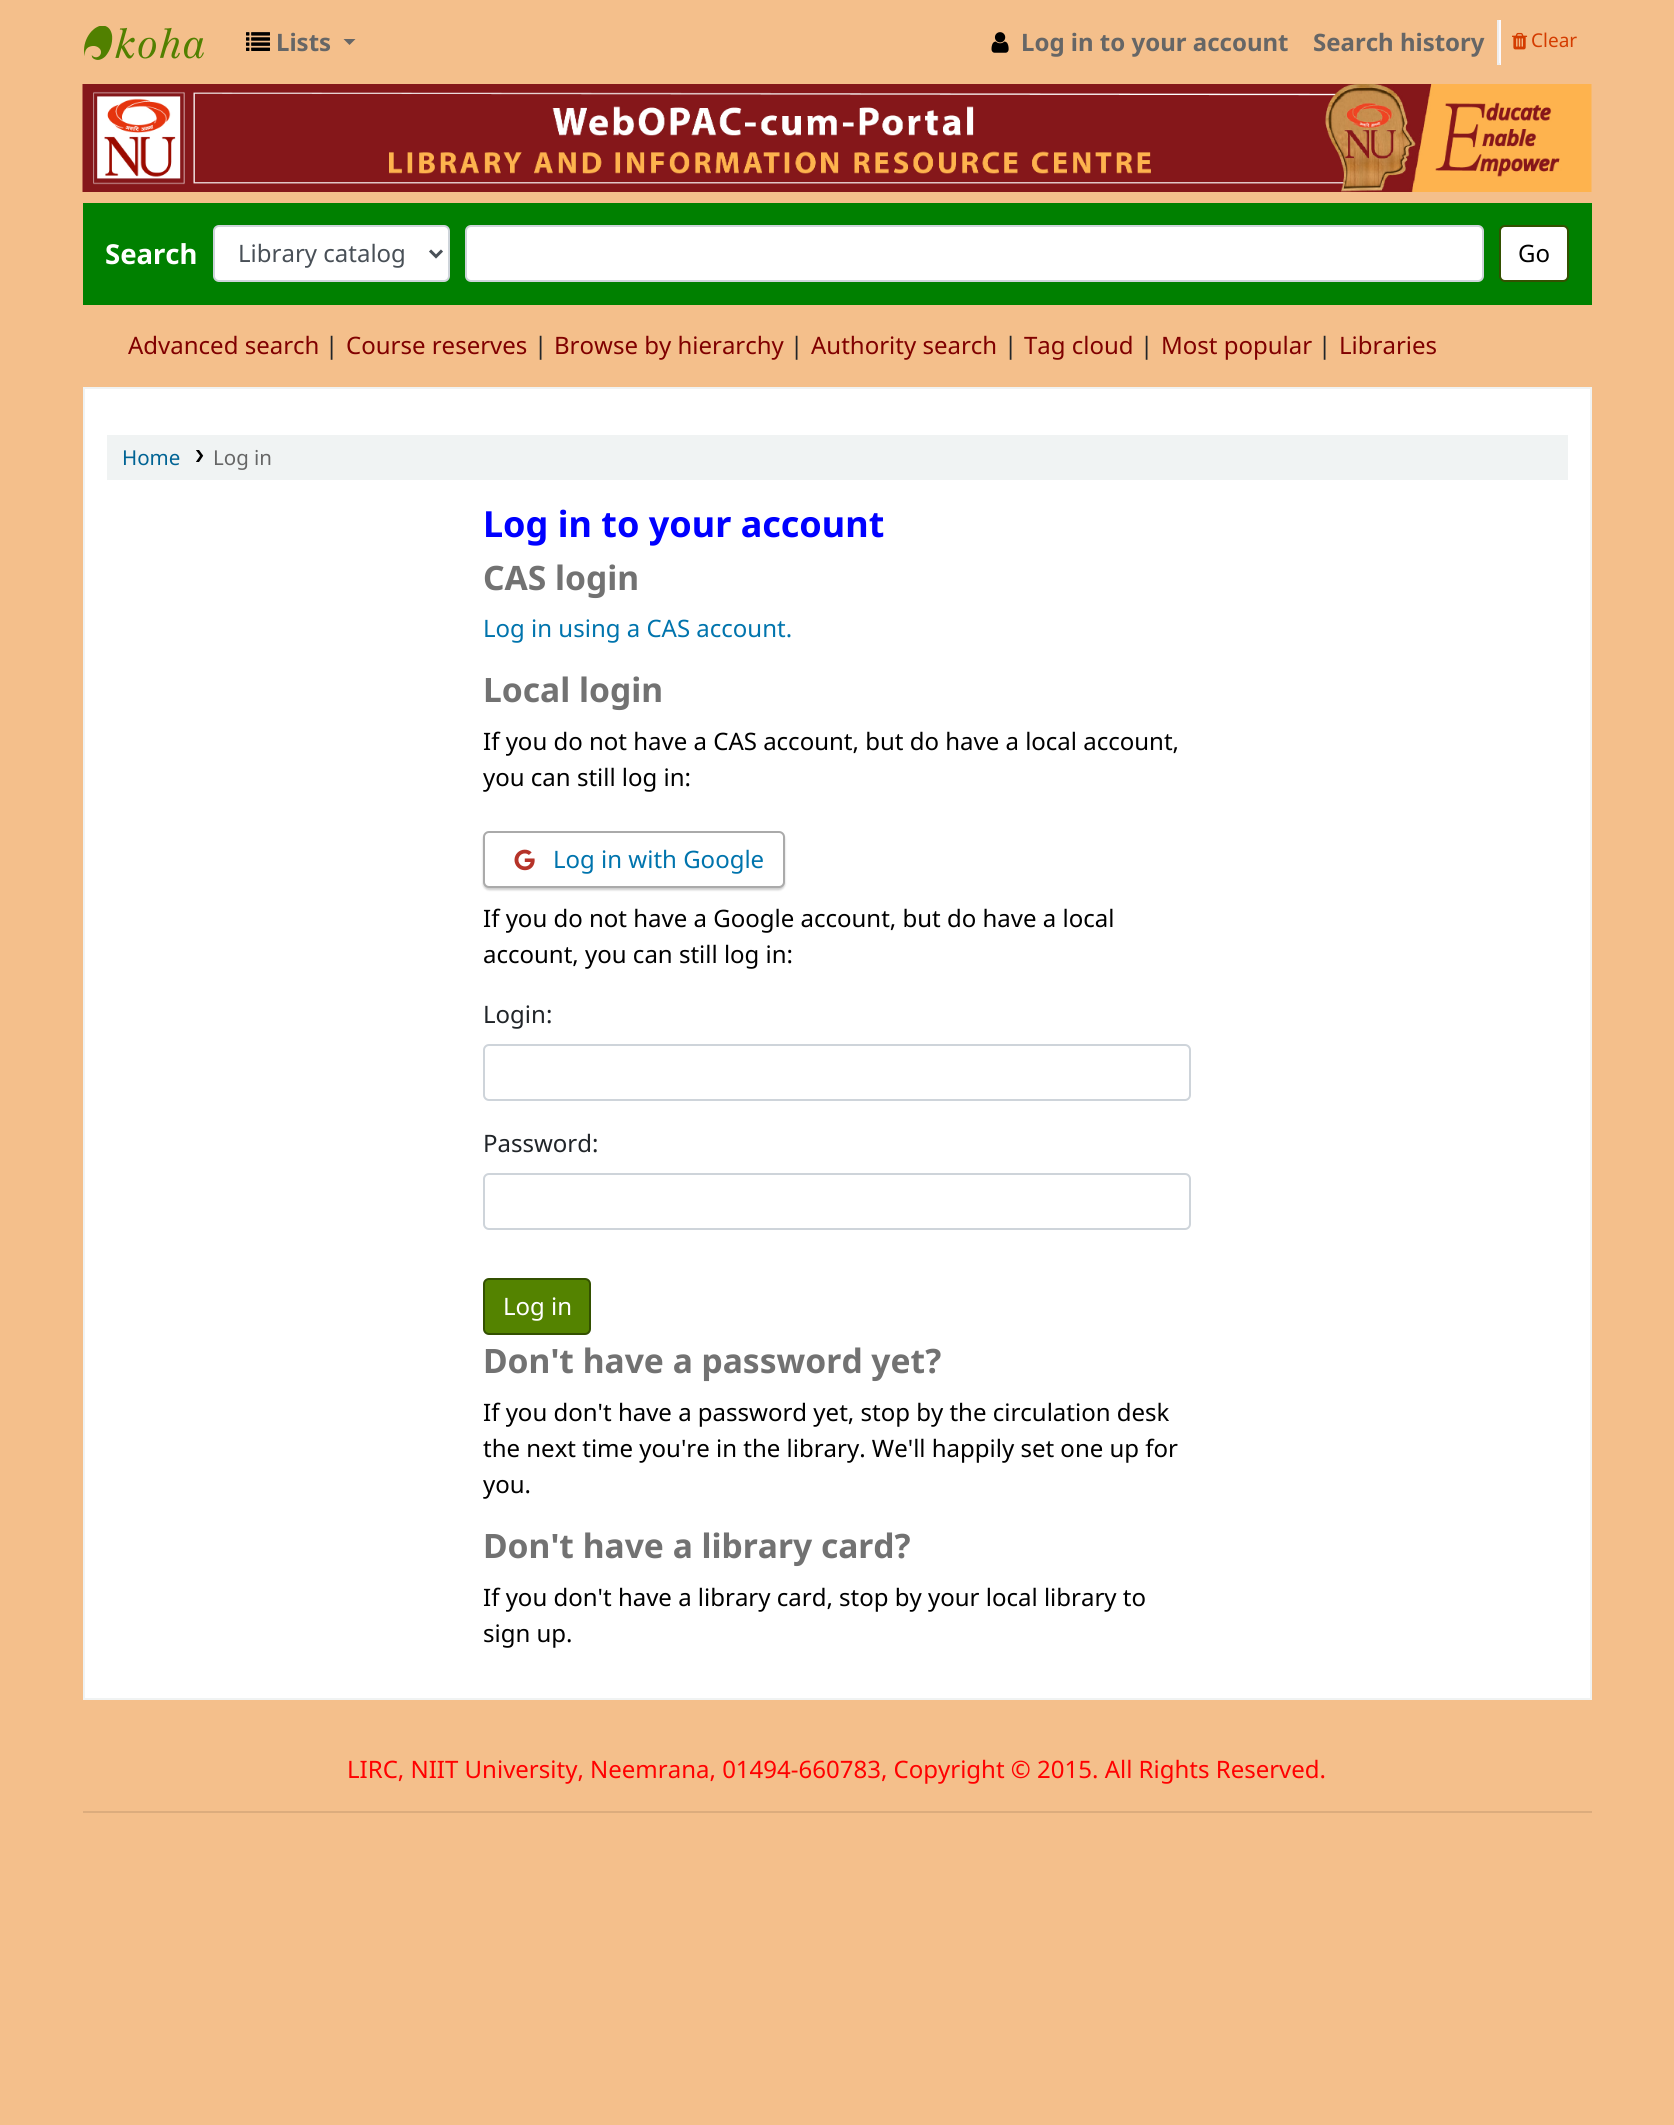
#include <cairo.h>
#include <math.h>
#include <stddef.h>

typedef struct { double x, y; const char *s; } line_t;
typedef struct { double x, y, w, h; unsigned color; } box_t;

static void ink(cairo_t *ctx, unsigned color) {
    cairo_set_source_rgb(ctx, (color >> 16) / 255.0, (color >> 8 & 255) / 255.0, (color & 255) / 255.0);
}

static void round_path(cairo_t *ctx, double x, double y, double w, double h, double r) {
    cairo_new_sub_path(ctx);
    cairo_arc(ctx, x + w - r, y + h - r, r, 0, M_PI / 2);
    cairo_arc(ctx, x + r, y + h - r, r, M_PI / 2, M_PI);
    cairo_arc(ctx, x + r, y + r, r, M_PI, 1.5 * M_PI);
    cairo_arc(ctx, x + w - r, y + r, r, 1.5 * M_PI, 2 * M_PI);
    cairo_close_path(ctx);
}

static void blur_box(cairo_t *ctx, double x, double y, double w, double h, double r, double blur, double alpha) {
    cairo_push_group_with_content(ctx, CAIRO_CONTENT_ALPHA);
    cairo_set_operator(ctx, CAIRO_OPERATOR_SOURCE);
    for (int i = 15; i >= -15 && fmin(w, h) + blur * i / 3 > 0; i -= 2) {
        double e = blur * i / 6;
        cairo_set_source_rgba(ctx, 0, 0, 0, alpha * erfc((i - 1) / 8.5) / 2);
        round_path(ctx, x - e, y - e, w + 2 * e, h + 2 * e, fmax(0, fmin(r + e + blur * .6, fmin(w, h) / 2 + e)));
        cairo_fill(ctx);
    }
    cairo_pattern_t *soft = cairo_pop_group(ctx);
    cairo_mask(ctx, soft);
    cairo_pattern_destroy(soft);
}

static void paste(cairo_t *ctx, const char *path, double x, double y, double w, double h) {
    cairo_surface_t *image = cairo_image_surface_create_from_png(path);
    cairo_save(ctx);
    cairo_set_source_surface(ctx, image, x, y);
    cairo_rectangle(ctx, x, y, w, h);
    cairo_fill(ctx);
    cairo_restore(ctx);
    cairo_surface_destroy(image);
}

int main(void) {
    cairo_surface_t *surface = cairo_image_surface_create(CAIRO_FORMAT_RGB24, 1674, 2125);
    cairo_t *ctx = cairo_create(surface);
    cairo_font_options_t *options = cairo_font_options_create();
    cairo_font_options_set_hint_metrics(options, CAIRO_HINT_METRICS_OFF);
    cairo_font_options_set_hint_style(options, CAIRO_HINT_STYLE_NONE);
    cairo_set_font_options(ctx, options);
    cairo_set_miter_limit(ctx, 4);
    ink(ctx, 0xF4BF8B);
    cairo_paint(ctx);
    paste(ctx, "media/1.png", 84, 26, 120, 34);
    paste(ctx, "media/2.png", 246, 32, 24, 19);
    cairo_select_font_face(ctx, "Noto Sans", CAIRO_FONT_SLANT_NORMAL, CAIRO_FONT_WEIGHT_BOLD);
    cairo_set_font_size(ctx, 24);
    ink(ctx, 0x666666);
    cairo_move_to(ctx, 276, 51);
    cairo_show_text(ctx, "Lists");
    cairo_new_path(ctx);
    cairo_move_to(ctx, 343.5, 39);
    cairo_line_to(ctx, 355.5, 39);
    cairo_line_to(ctx, 349.5, 45);
    cairo_close_path(ctx);
    cairo_fill(ctx);
    paste(ctx, "media/3.png", 991, 32, 18, 21);
    cairo_move_to(ctx, 1021, 51);
    cairo_show_text(ctx, "Log in to your account");
    cairo_move_to(ctx, 1313, 51);
    cairo_show_text(ctx, "Search history");
    {
        static const box_t items[] = {
            {1499, 20, 2, 45, 0xFCF9FC},
            {1497, 63, 3, 2, 0xEEEEEE},
            {1497, 20, 2, 45, 0xEEEEEE},
        };
        for (size_t i = 0; i < sizeof items / sizeof *items; i++) {
            ink(ctx, items[i].color);
            cairo_rectangle(ctx, items[i].x, items[i].y, items[i].w, items[i].h);
            cairo_fill(ctx);
        }
    }
    paste(ctx, "media/4.png", 1512, 32, 16, 18);
    cairo_select_font_face(ctx, "Noto Sans", CAIRO_FONT_SLANT_NORMAL, CAIRO_FONT_WEIGHT_NORMAL);
    cairo_set_font_size(ctx, 19);
    ink(ctx, 0xD43C00);
    cairo_move_to(ctx, 1531, 47);
    cairo_show_text(ctx, "Clear");
    paste(ctx, "media/5.png", 82, 84, 1510, 108);
    ink(ctx, 0x008000);
    cairo_rectangle(ctx, 83, 203, 1509, 102);
    cairo_fill(ctx);
    cairo_select_font_face(ctx, "Noto Sans", CAIRO_FONT_SLANT_NORMAL, CAIRO_FONT_WEIGHT_BOLD);
    cairo_set_font_size(ctx, 27.5);
    ink(ctx, 0xFFFFFF);
    cairo_move_to(ctx, 105, 264);
    cairo_show_text(ctx, "Search");
    round_path(ctx, 214, 226, 235, 55, 5);
    cairo_fill_preserve(ctx);
    ink(ctx, 0xCED4DA);
    cairo_stroke(ctx);
    cairo_new_path(ctx);
    cairo_move_to(ctx, 430, 250.5);
    cairo_line_to(ctx, 436, 256.5);
    cairo_line_to(ctx, 442, 250.5);
    ink(ctx, 0x495057);
    cairo_set_line_width(ctx, 3);
    cairo_stroke(ctx);
    cairo_select_font_face(ctx, "Noto Sans", CAIRO_FONT_SLANT_NORMAL, CAIRO_FONT_WEIGHT_NORMAL);
    cairo_set_font_size(ctx, 24);
    cairo_move_to(ctx, 238, 262);
    cairo_show_text(ctx, "Library catalog");
    ink(ctx, 0xFFFFFF);
    round_path(ctx, 466, 226, 1017, 55, 5);
    cairo_fill_preserve(ctx);
    ink(ctx, 0xCED4DA);
    cairo_set_line_width(ctx, 2);
    cairo_stroke(ctx);
    ink(ctx, 0xFFFFFF);
    round_path(ctx, 1500, 226, 68, 55, 5);
    cairo_fill_preserve(ctx);
    ink(ctx, 0x335000);
    cairo_stroke(ctx);
    ink(ctx, 0x000000);
    cairo_move_to(ctx, 1518, 262);
    cairo_show_text(ctx, "Go");
    ink(ctx, 0x800000);
    cairo_move_to(ctx, 128, 354);
    cairo_show_text(ctx, "Advanced search");
    ink(ctx, 0x212529);
    cairo_move_to(ctx, 325, 354);
    cairo_show_text(ctx, "|");
    ink(ctx, 0x800000);
    cairo_move_to(ctx, 346, 354);
    cairo_show_text(ctx, "Course reserves");
    ink(ctx, 0x212529);
    cairo_move_to(ctx, 534, 354);
    cairo_show_text(ctx, "|");
    ink(ctx, 0x800000);
    cairo_move_to(ctx, 554, 354);
    cairo_show_text(ctx, "Browse by hierarchy");
    ink(ctx, 0x212529);
    cairo_move_to(ctx, 790, 354);
    cairo_show_text(ctx, "|");
    ink(ctx, 0x800000);
    cairo_move_to(ctx, 811, 354);
    cairo_show_text(ctx, "Authority search");
    ink(ctx, 0x212529);
    cairo_move_to(ctx, 1004, 354);
    cairo_show_text(ctx, "|");
    ink(ctx, 0x800000);
    cairo_move_to(ctx, 1024, 354);
    cairo_show_text(ctx, "Tag cloud");
    ink(ctx, 0x212529);
    cairo_move_to(ctx, 1140, 354);
    cairo_show_text(ctx, "|");
    ink(ctx, 0x800000);
    cairo_move_to(ctx, 1161, 354);
    cairo_show_text(ctx, "Most popular");
    ink(ctx, 0x212529);
    cairo_move_to(ctx, 1318, 354);
    cairo_show_text(ctx, "|");
    ink(ctx, 0x800000);
    cairo_move_to(ctx, 1339, 354);
    cairo_show_text(ctx, "Libraries");
    ink(ctx, 0xFFFFFF);
    cairo_rectangle(ctx, 84, 388, 1507, 1311);
    cairo_fill_preserve(ctx);
    ink(ctx, 0xF0F3F3);
    cairo_stroke(ctx);
    cairo_rectangle(ctx, 107, 435, 1461, 45);
    cairo_fill(ctx);
    cairo_set_font_size(ctx, 20.5);
    ink(ctx, 0x006394);
    cairo_move_to(ctx, 122, 465);
    cairo_show_text(ctx, "Home");
    paste(ctx, "media/6.png", 196, 450, 8, 12);
    ink(ctx, 0x666666);
    cairo_move_to(ctx, 213, 465);
    cairo_show_text(ctx, "Log in");
    cairo_select_font_face(ctx, "Noto Sans", CAIRO_FONT_SLANT_NORMAL, CAIRO_FONT_WEIGHT_BOLD);
    cairo_set_font_size(ctx, 36);
    ink(ctx, 0x0000FF);
    cairo_move_to(ctx, 483, 537);
    cairo_show_text(ctx, "Log in to your account");
    cairo_set_font_size(ctx, 33.6);
    ink(ctx, 0x727272);
    cairo_move_to(ctx, 483, 590);
    cairo_show_text(ctx, "CAS login");
    cairo_select_font_face(ctx, "Noto Sans", CAIRO_FONT_SLANT_NORMAL, CAIRO_FONT_WEIGHT_NORMAL);
    cairo_set_font_size(ctx, 24);
    ink(ctx, 0x0074AD);
    cairo_move_to(ctx, 483, 637);
    cairo_show_text(ctx, "Log in using a CAS account.");
    cairo_select_font_face(ctx, "Noto Sans", CAIRO_FONT_SLANT_NORMAL, CAIRO_FONT_WEIGHT_BOLD);
    cairo_set_font_size(ctx, 33.6);
    ink(ctx, 0x727272);
    cairo_move_to(ctx, 483, 702);
    cairo_show_text(ctx, "Local login");
    cairo_select_font_face(ctx, "Noto Sans", CAIRO_FONT_SLANT_NORMAL, CAIRO_FONT_WEIGHT_NORMAL);
    cairo_set_font_size(ctx, 24);
    ink(ctx, 0x000000);
    cairo_move_to(ctx, 483, 750);
    cairo_show_text(ctx, "If you do not have a CAS account, but do have a local account,");
    cairo_move_to(ctx, 483, 786);
    cairo_show_text(ctx, "you can still log in:");
    ink(ctx, 0x000000);
    blur_box(ctx, 483, 833, 302, 57, 6, 1, 0.2);
    ink(ctx, 0xFFFFFF);
    round_path(ctx, 484, 832, 300, 55, 5);
    cairo_fill_preserve(ctx);
    ink(ctx, 0xAAAAAA);
    cairo_stroke(ctx);
    paste(ctx, "media/7.png", 514, 849, 21, 22);
    ink(ctx, 0x0074AD);
    cairo_move_to(ctx, 553, 868);
    cairo_show_text(ctx, "Log in with Google");
    ink(ctx, 0x000000);
    cairo_move_to(ctx, 483, 927);
    cairo_show_text(ctx, "If you do not have a Google account, but do have a local");
    cairo_move_to(ctx, 483, 963);
    cairo_show_text(ctx, "account, you can still log in:");
    ink(ctx, 0x212529);
    cairo_move_to(ctx, 483, 1023);
    cairo_show_text(ctx, "Login:");
    round_path(ctx, 484, 1045, 706, 55, 5);
    ink(ctx, 0xCED4DA);
    cairo_stroke(ctx);
    ink(ctx, 0x212529);
    cairo_move_to(ctx, 483, 1152);
    cairo_show_text(ctx, "Password:");
    round_path(ctx, 484, 1174, 706, 55, 5);
    ink(ctx, 0xCED4DA);
    cairo_stroke(ctx);
    ink(ctx, 0x548300);
    round_path(ctx, 484, 1279, 106, 55, 5);
    cairo_fill_preserve(ctx);
    ink(ctx, 0x335000);
    cairo_stroke(ctx);
    ink(ctx, 0xFFFFFF);
    cairo_move_to(ctx, 503, 1315);
    cairo_show_text(ctx, "Log in");
    cairo_select_font_face(ctx, "Noto Sans", CAIRO_FONT_SLANT_NORMAL, CAIRO_FONT_WEIGHT_BOLD);
    cairo_set_font_size(ctx, 33.6);
    ink(ctx, 0x727272);
    cairo_move_to(ctx, 483, 1373);
    cairo_show_text(ctx, "Don't have a password yet?");
    cairo_select_font_face(ctx, "Noto Sans", CAIRO_FONT_SLANT_NORMAL, CAIRO_FONT_WEIGHT_NORMAL);
    cairo_set_font_size(ctx, 24);
    ink(ctx, 0x000000);
    {
        static const line_t items[] = {
            {483, 1421, "If you don't have a password yet, stop by the circulation desk"},
            {483, 1457, "the next time you're in the library. We'll happily set one up for"},
            {483, 1493, "you."},
        };
        for (size_t i = 0; i < sizeof items / sizeof *items; i++) {
            cairo_move_to(ctx, items[i].x, items[i].y);
            cairo_show_text(ctx, items[i].s);
        }
    }
    cairo_select_font_face(ctx, "Noto Sans", CAIRO_FONT_SLANT_NORMAL, CAIRO_FONT_WEIGHT_BOLD);
    cairo_set_font_size(ctx, 33.6);
    ink(ctx, 0x727272);
    cairo_move_to(ctx, 483, 1558);
    cairo_show_text(ctx, "Don't have a library card?");
    cairo_select_font_face(ctx, "Noto Sans", CAIRO_FONT_SLANT_NORMAL, CAIRO_FONT_WEIGHT_NORMAL);
    cairo_set_font_size(ctx, 24);
    ink(ctx, 0x000000);
    cairo_move_to(ctx, 483, 1606);
    cairo_show_text(ctx, "If you don't have a library card, stop by your local library to");
    cairo_move_to(ctx, 483, 1642);
    cairo_show_text(ctx, "sign up.");
    ink(ctx, 0xFF0000);
    cairo_move_to(ctx, 347, 1778);
    cairo_show_text(ctx, "LIRC, NIIT University, Neemrana, 01494-660783, Copyright © 2015. All Rights Reserved.");
    ink(ctx, 0xDCAC7D);
    cairo_rectangle(ctx, 83, 1811, 1509, 2);
    cairo_fill(ctx);
    cairo_surface_write_to_png(surface, "image.png");
    cairo_font_options_destroy(options);
    cairo_destroy(ctx);
    cairo_surface_destroy(surface);
    return 0;
}
